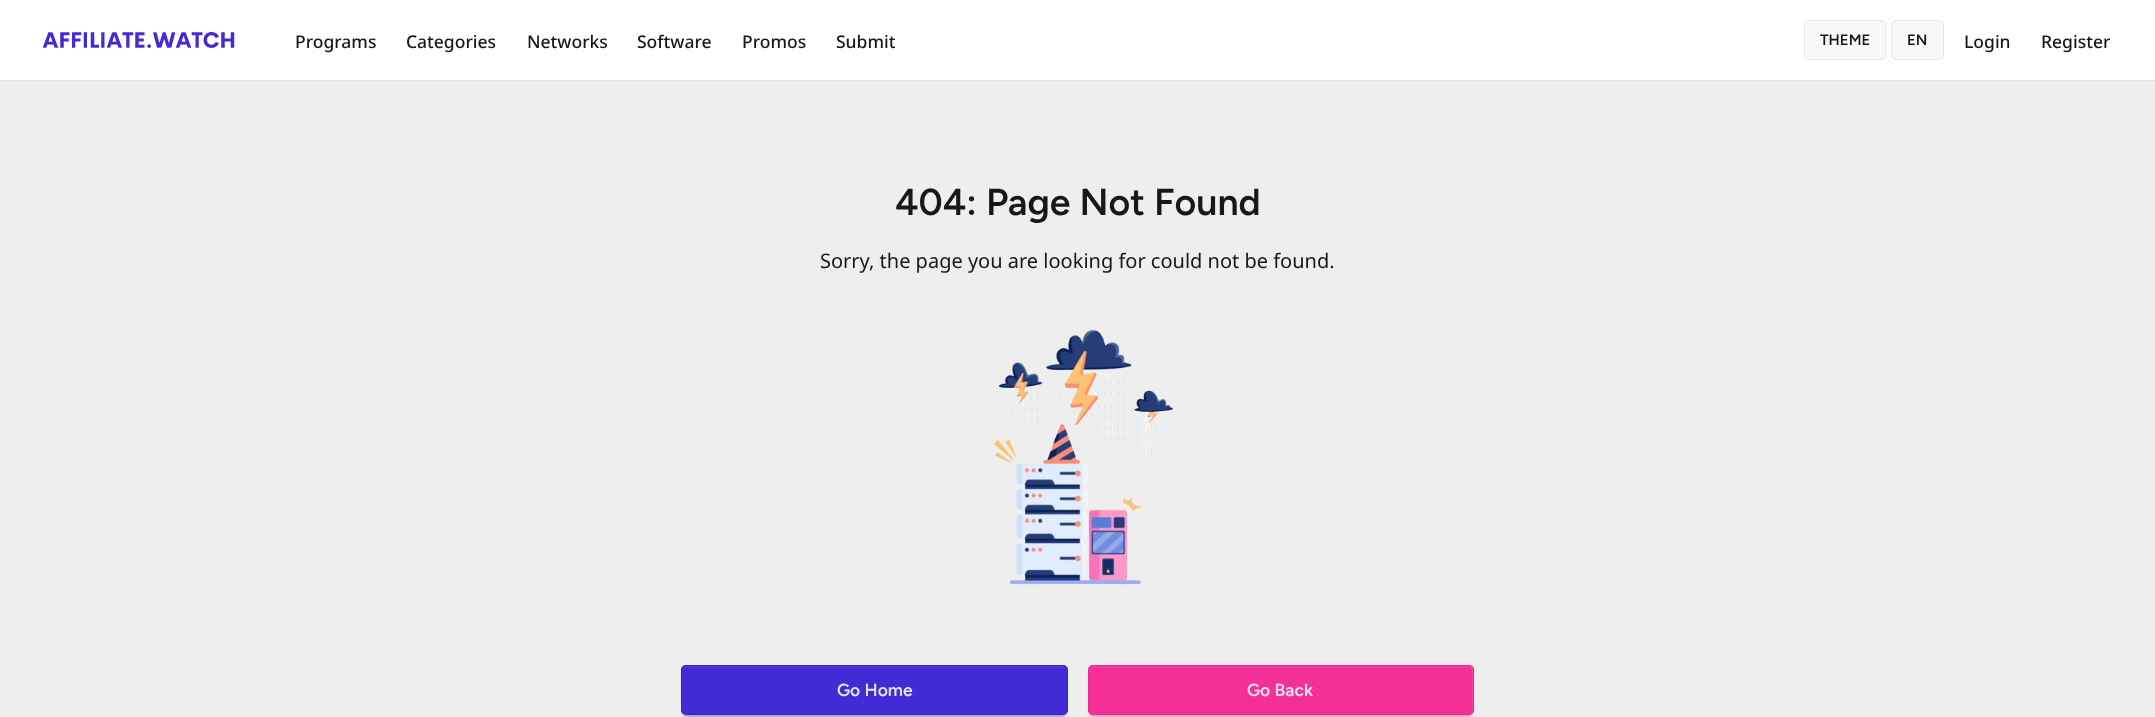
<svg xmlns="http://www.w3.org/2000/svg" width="2155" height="717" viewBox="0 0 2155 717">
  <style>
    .t1 { font: 500 17.5px Noto Sans; fill: #18181b; }
    .t2 { font: 600 15px Figtree; fill: #18181b; }
    .t3 { font: 600 37.5px Figtree; fill: #18181b; }
    .t4 { font: 20px Noto Sans; fill: #18181b; }
    .t5 { font: 600 17.5px Figtree; fill: #e0e7ff; }
    .t6 { font: 600 17.5px Figtree; fill: #f9e4f0; }
  </style>
  <rect width="100%" height="100%" fill="#fff"/>
  <rect x="0" y="80" width="2155" height="1" fill="#e4e4e7"/>
  <image x="42" y="32" width="193" height="16" href="images/1.png"/>
  <text x="295" y="48" class="t1">Programs</text>
  <text x="406" y="48" class="t1">Categories</text>
  <text x="527" y="48" class="t1">Networks</text>
  <text x="637" y="48" class="t1">Software</text>
  <text x="742" y="48" class="t1">Promos</text>
  <text x="836" y="48" class="t1">Submit</text>
  <rect x="1804.5" y="20.5" width="81" height="39" rx="4.5" fill="#f8f8f8" stroke="#e8e8e8"/>
  <text x="1820" y="45" class="t2">THEME</text>
  <rect x="1891.5" y="20.5" width="52" height="39" rx="4.5" fill="#f8f8f8" stroke="#e8e8e8"/>
  <text x="1907" y="45" class="t2">EN</text>
  <text x="1964" y="48" class="t1">Login</text>
  <text x="2041" y="48" class="t1">Register</text>
  <rect x="0" y="81" width="2155" height="636" fill="#eee"/>
  <text x="895" y="215" class="t3">404: Page Not Found</text>
  <text x="820" y="268" class="t4">Sorry, the page you are looking for could not be found.</text>
  <image x="993" y="329" width="181" height="256" href="images/2.png"/>
  <rect x="684" y="673" width="381" height="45" rx="2.5" fill="#422ad54d" filter="blur(2px)"/>
  <rect x="684" y="671" width="381" height="45" rx="2.5" fill="#422ad54d" filter="blur(1px)"/>
  <rect x="681" y="665" width="387" height="50" rx="5" fill="#422ad5"/>
  <path d="M686 668H1062C1064 668 1066 669 1066 671C1066 668 1065 666 1062 666H687C684 666 683 668 683 671C683 669 685 668 686 668ZM1065 713L1062 714Z" fill="#4d37d8" fill-rule="evenodd"/>
  <rect x="681.5" y="665.5" width="386" height="49" rx="4.5" fill="none" stroke="#3d26c7"/>
  <text x="837" y="696" class="t5">Go Home</text>
  <rect x="1090" y="673" width="381" height="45" rx="2.5" fill="#f430984d" filter="blur(2px)"/>
  <rect x="1090" y="671" width="381" height="45" rx="2.5" fill="#f430984d" filter="blur(1px)"/>
  <rect x="1088" y="665" width="386" height="50" rx="5" fill="#f43098"/>
  <path d="M1092 668H1469C1470 668 1472 669 1472 671V711C1472 712 1470 714 1469 714C1471 714 1473 712 1473 710V670C1473 668 1471 666 1469 666H1093C1091 666 1089 668 1089 670V671C1089 669 1091 668 1092 668Z" fill="#f53c9e"/>
  <rect x="1088.5" y="665.5" width="385" height="49" rx="4.5" fill="none" stroke="#e42c8e"/>
  <text x="1247" y="696" class="t6">Go Back</text>
</svg>
